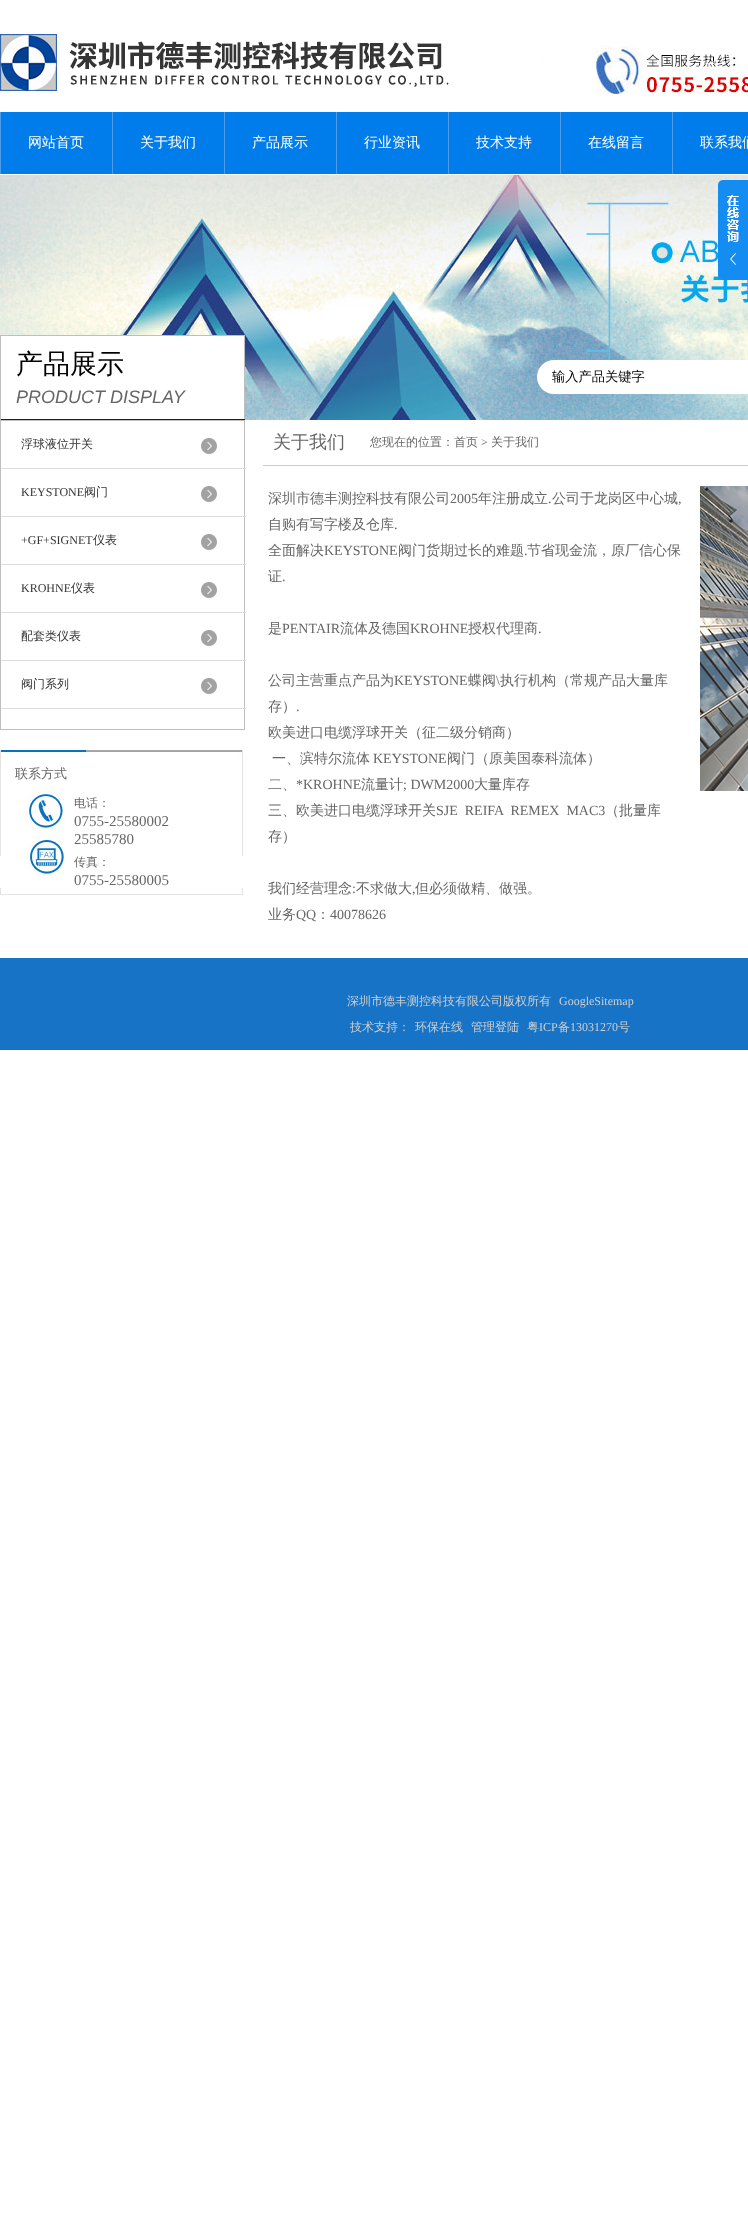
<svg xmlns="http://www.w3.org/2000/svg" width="748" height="2233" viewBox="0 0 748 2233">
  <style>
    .t1 { font: 500 14px WenQuanYi Zen Hei; fill: #fff; }
    .t2 { font: 500 27px WenQuanYi Zen Hei; fill: #000; }
    .t3 { font: italic 18px Liberation Sans; fill: #666; }
    .t4 { font: 500 13.25px WenQuanYi Zen Hei; fill: #000; }
    .t5 { font: 500 12px WenQuanYi Zen Hei; fill: #333; }
    .t6 { font: 12px Liberation Serif; fill: #333; }
    .t7 { font: 500 13px WenQuanYi Zen Hei; fill: #666; }
    .t8 { font: 500 12px WenQuanYi Zen Hei; fill: #666; }
    .t9 { font: 15px Liberation Serif; fill: #666; }
    .t10 { font: 500 18px WenQuanYi Zen Hei; fill: #666; }
    .t11 { font: 12px Liberation Serif; fill: #666; }
    .t12 { font: 500 14px WenQuanYi Zen Hei; fill: #666; }
    .t13 { font: 14px Liberation Serif; fill: #666; }
    .t14 { font: 500 12px WenQuanYi Zen Hei; fill: #cfcfcf; }
    .t15 { font: 12px Liberation Serif; fill: #cfcfcf; }
  </style>
  <rect width="100%" height="100%" fill="#fff"/>
  <image x="0" y="34" width="543" height="57" href="images/1.png"/>
  <image x="596" y="46" width="152" height="48" href="images/2.png"/>
  <rect x="1" y="112" width="747" height="62" fill="#007deb"/>
  <image x="0" y="112" width="1" height="62" href="images/3.png"/>
  <text x="28" y="147" class="t1">网站首页</text>
  <image x="112" y="112" width="1" height="62" href="images/3.png"/>
  <text x="140" y="147" class="t1">关于我们</text>
  <image x="224" y="112" width="1" height="62" href="images/3.png"/>
  <text x="252" y="147" class="t1">产品展示</text>
  <image x="336" y="112" width="1" height="62" href="images/3.png"/>
  <text x="364" y="147" class="t1">行业资讯</text>
  <image x="448" y="112" width="1" height="62" href="images/3.png"/>
  <text x="476" y="147" class="t1">技术支持</text>
  <image x="560" y="112" width="1" height="62" href="images/3.png"/>
  <text x="588" y="147" class="t1">在线留言</text>
  <image x="672" y="112" width="1" height="62" href="images/3.png"/>
  <text x="700" y="147" class="t1">联系我们</text>
  <image x="0" y="175" width="748" height="245" href="images/4.png"/>
  <image x="718" y="180" width="30" height="100" href="images/5.png"/>
  <rect x="1" y="336" width="243" height="83" fill="#fff"/>
  <rect x="0" y="335" width="245" height="1" fill="#bebebe"/>
  <rect x="244" y="335" width="1" height="85" fill="#bebebe"/>
  <rect x="0" y="419" width="245" height="1" fill="#23201d"/>
  <rect x="0" y="335" width="1" height="85" fill="#bebebe"/>
  <text x="16" y="373" class="t2">产品展示</text>
  <text x="16" y="403" class="t3">PRODUCT DISPLAY</text>
  <rect x="537" y="360" width="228" height="34" rx="17" fill="#fff"/>
  <text x="552" y="381" class="t4">输入产品关键字</text>
  <rect x="0.5" y="420.5" width="244" height="309" fill="none" stroke="#bebebe"/>
  <image x="201" y="438" width="16" height="16" href="images/6.png"/>
  <rect x="1" y="468" width="245" height="1" fill="#ddd"/>
  <text x="21" y="448" class="t5">浮球液位开关</text>
  <image x="201" y="486" width="16" height="16" href="images/6.png"/>
  <rect x="1" y="516" width="245" height="1" fill="#ddd"/>
  <text x="21" y="496" class="t6">KEYSTONE</text>
  <text x="84" y="496" class="t5">阀门</text>
  <image x="201" y="534" width="16" height="16" href="images/6.png"/>
  <rect x="1" y="564" width="245" height="1" fill="#ddd"/>
  <text x="21" y="544" class="t6">+GF+SIGNET</text>
  <text x="93" y="544" class="t5">仪表</text>
  <image x="201" y="582" width="16" height="16" href="images/6.png"/>
  <rect x="1" y="612" width="245" height="1" fill="#ddd"/>
  <text x="21" y="592" class="t6">KROHNE</text>
  <text x="71" y="592" class="t5">仪表</text>
  <image x="201" y="630" width="16" height="16" href="images/6.png"/>
  <rect x="1" y="660" width="245" height="1" fill="#ddd"/>
  <text x="21" y="640" class="t5">配套类仪表</text>
  <image x="201" y="678" width="16" height="16" href="images/6.png"/>
  <rect x="1" y="708" width="245" height="1" fill="#ddd"/>
  <text x="21" y="688" class="t5">阀门系列</text>
  <image x="0" y="750" width="243" height="145" href="images/7.png"/>
  <text x="15" y="778" class="t7">联系方式</text>
  <text x="74" y="807" class="t8">电话：</text>
  <text x="74" y="826" class="t9">0755-25580002</text>
  <text x="74" y="844" class="t9">25585780</text>
  <text x="74" y="866" class="t8">传真：</text>
  <text x="74" y="885" class="t9">0755-25580005</text>
  <rect x="263" y="465" width="485" height="1" fill="#ccc"/>
  <text x="273" y="448" class="t10">关于我们</text>
  <text x="370" y="446" class="t8">您现在的位置：首页</text>
  <text x="481" y="446" class="t11">&gt;</text>
  <text x="491" y="446" class="t8">关于我们</text>
  <text x="268" y="503" class="t12">深圳市德丰测控科技有限公司</text>
  <text x="450" y="503" class="t13">2005</text>
  <text x="478" y="503" class="t12">年注册成立</text>
  <text x="548" y="503" class="t13">.</text>
  <text x="552" y="503" class="t12">公司于龙岗区中心城</text>
  <text x="678" y="503" class="t13">,</text>
  <text x="268" y="529" class="t12">自购有写字楼及仓库</text>
  <text x="394" y="529" class="t13">.</text>
  <text x="268" y="555" class="t12">全面解决</text>
  <text x="324" y="555" class="t13">KEYSTONE</text>
  <text x="398" y="555" class="t12">阀门货期过长的难题</text>
  <text x="524" y="555" class="t13">.</text>
  <text x="527" y="555" class="t12">节省现金流，原厂信心保</text>
  <text x="268" y="581" class="t12">证</text>
  <text x="282" y="581" class="t13">.</text>
  <text x="268" y="633" class="t12">是</text>
  <text x="282" y="633" class="t13">PENTAIR</text>
  <text x="340" y="633" class="t12">流体及德国</text>
  <text x="410" y="633" class="t13">KROHNE</text>
  <text x="468" y="633" class="t12">授权代理商</text>
  <text x="538" y="633" class="t13">.</text>
  <text x="268" y="685" class="t12">公司主营重点产品为</text>
  <text x="394" y="685" class="t13">KEYSTONE</text>
  <text x="468" y="685" class="t12">蝶阀</text>
  <text x="496" y="685" class="t13">\</text>
  <text x="500" y="685" class="t12">执行机构（常规产品大量库</text>
  <text x="268" y="711" class="t12">存）</text>
  <text x="296" y="711" class="t13">.</text>
  <text x="268" y="737" class="t12">欧美进口电缆浮球开关（征二级分销商）</text>
  <text x="272" y="763" class="t12">一、滨特尔流体</text>
  <text x="373" y="763" class="t13">KEYSTONE</text>
  <text x="447" y="763" class="t12">阀门（原美国泰科流体）</text>
  <text x="268" y="789" class="t12">二、</text>
  <text x="296" y="789" class="t13">*KROHNE</text>
  <text x="361" y="789" class="t12">流量计</text>
  <text x="403" y="789" class="t13">; DWM2000</text>
  <text x="474" y="789" class="t12">大量库存</text>
  <text x="268" y="815" class="t12">三、欧美进口电缆浮球开关</text>
  <text x="436" y="815" class="t13" xml:space="preserve">SJE  REIFA  REMEX  MAC3</text>
  <text x="605" y="815" class="t12">（批量库</text>
  <text x="268" y="841" class="t12">存）</text>
  <text x="268" y="893" class="t12">我们经营理念</text>
  <text x="352" y="893" class="t13">:</text>
  <text x="356" y="893" class="t12">不求做大</text>
  <text x="412" y="893" class="t13">,</text>
  <text x="415" y="893" class="t12">但必须做精、做强。</text>
  <text x="268" y="919" class="t12">业务</text>
  <text x="296" y="919" class="t13">QQ</text>
  <text x="316" y="919" class="t12">：</text>
  <text x="330" y="919" class="t13">40078626</text>
  <image x="700" y="486" width="48" height="305" href="images/8.png"/>
  <rect x="0" y="958" width="748" height="92" fill="#1773c6"/>
  <text x="347" y="1005" class="t14">深圳市德丰测控科技有限公司版权所有</text>
  <text x="559" y="1005" class="t15">GoogleSitemap</text>
  <text x="350" y="1031" class="t14">技术支持：</text>
  <text x="415" y="1031" class="t14">环保在线</text>
  <text x="471" y="1031" class="t14">管理登陆</text>
  <text x="527" y="1031" class="t14">粤</text>
  <text x="539" y="1031" class="t15">ICP</text>
  <text x="558" y="1031" class="t14">备</text>
  <text x="570" y="1031" class="t15">13031270</text>
  <text x="618" y="1031" class="t14">号</text>
</svg>
